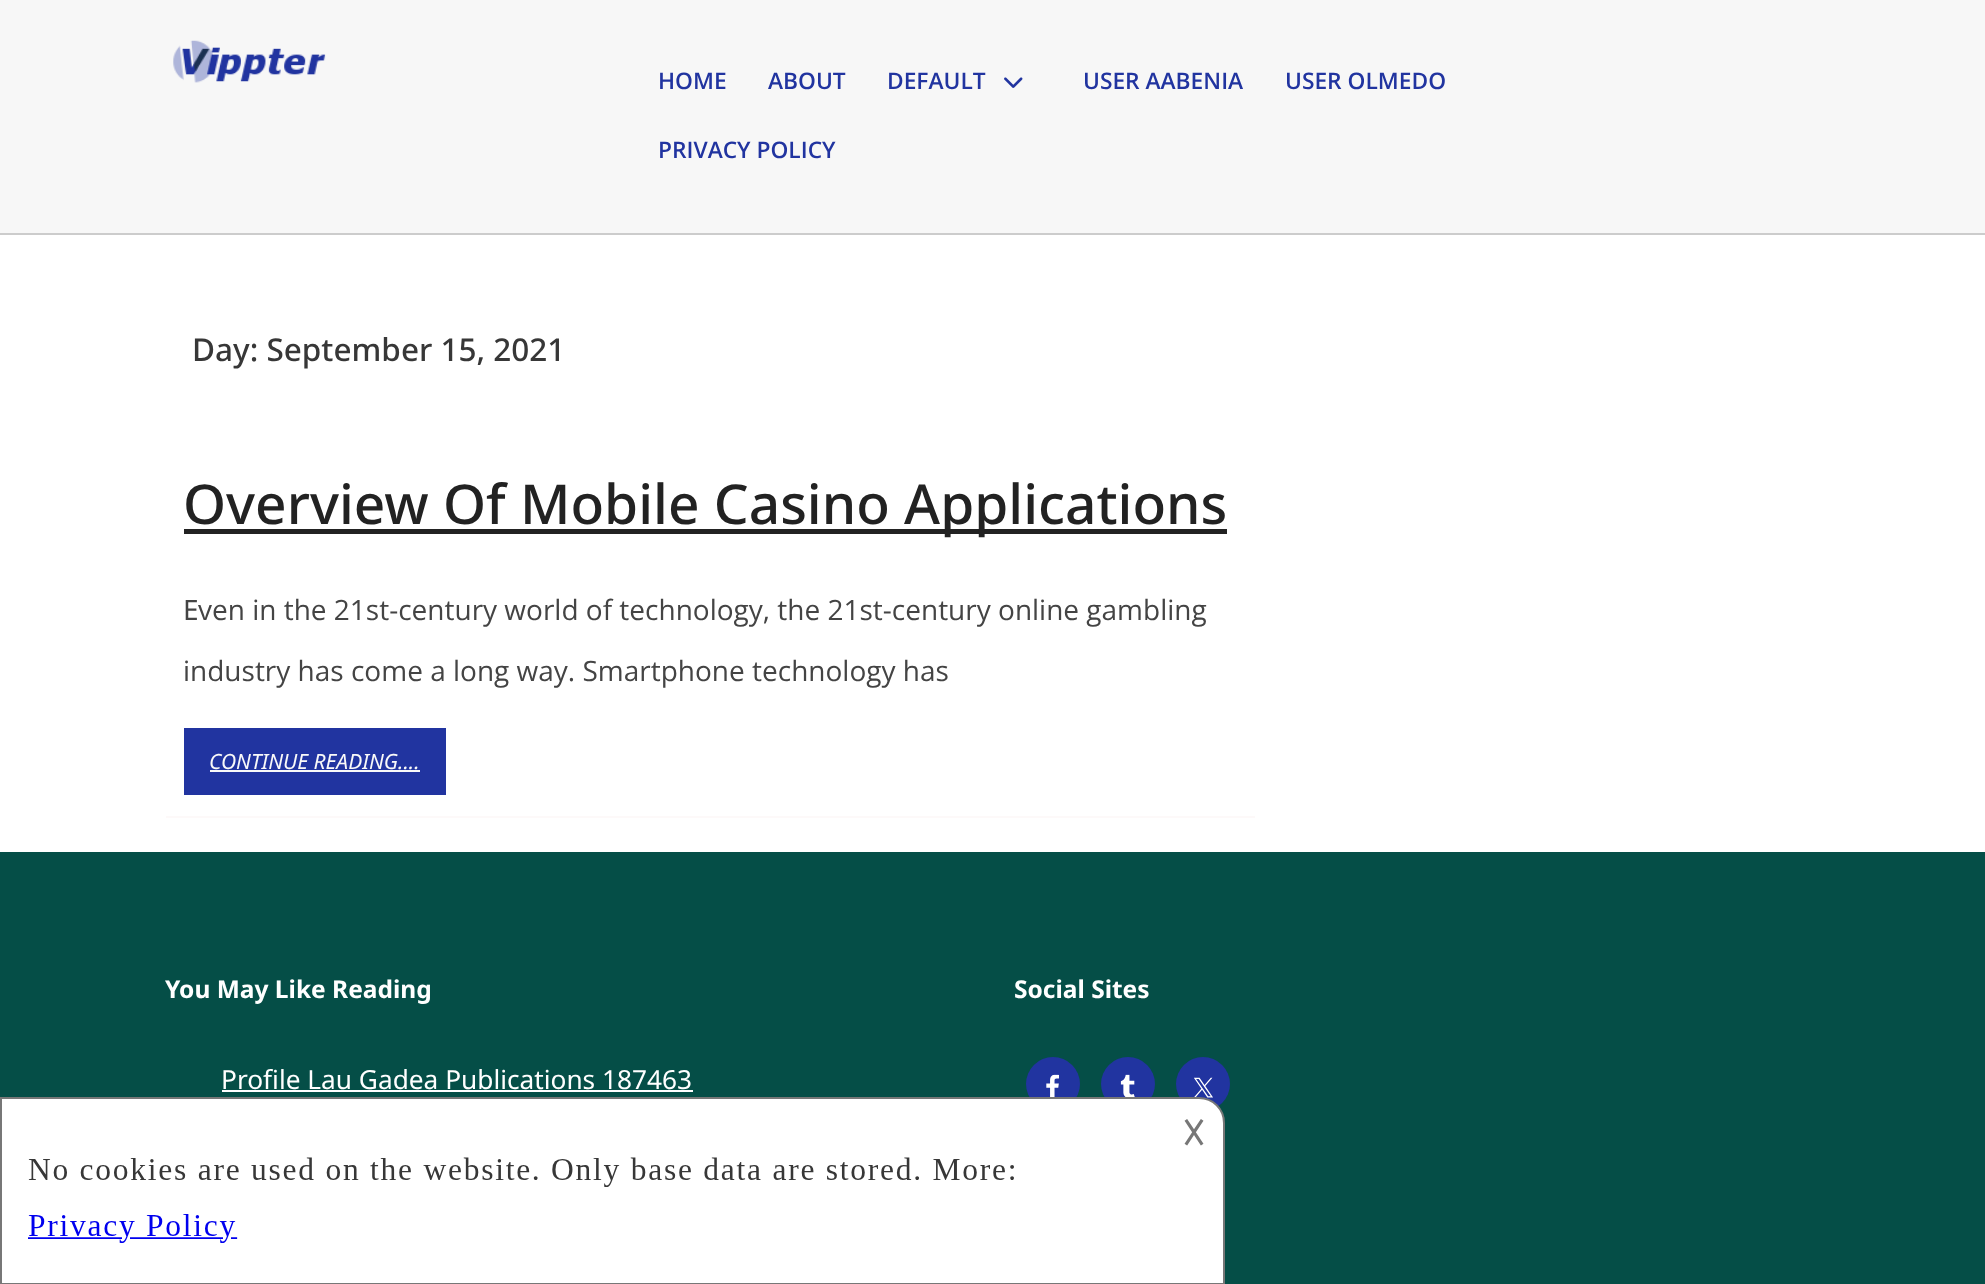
<svg xmlns="http://www.w3.org/2000/svg" width="1985" height="1284" viewBox="0 0 1985 1284">
  <style>
    .t1 { font: 600 22.75px Open Sans; fill: #2134a0; }
    .t2 { font: 500 31.5px Noto Sans; fill: #373737; }
    .t3 { font: 500 55px Noto Sans; fill: #222; }
    .t4 { font: 28px Noto Sans; fill: #444; }
    .t5 { font: 28px Open Sans; fill: #444; }
    .t6 { font: italic 21px Noto Sans; fill: #f9f9f9; }
    .t7 { font: bold 24.5px Noto Sans; fill: #fff; }
    .t8 { font: 26.25px Noto Sans; fill: #fff; }
    .t9 { font: 35px DejaVu Sans; fill: #777; }
  </style>
  <rect width="100%" height="100%" fill="#fff"/>
  <rect x="0" y="0" width="1985" height="233" fill="#f7f7f7"/>
  <rect x="0" y="233" width="1985" height="2" fill="#ccc"/>
  <image x="173" y="40" width="153" height="43" href="images/1.png"/>
  <text x="658" y="89" class="t1">HOME</text>
  <text x="768" y="89" class="t1">ABOUT</text>
  <text x="887" y="89" class="t1">DEFAULT</text>
  <image x="1004" y="77" width="19" height="11" href="images/2.png"/>
  <text x="1083" y="89" class="t1">USER AABENIA</text>
  <text x="1285" y="89" class="t1">USER OLMEDO</text>
  <text x="658" y="158" class="t1">PRIVACY POLICY</text>
  <text x="192" y="361" class="t2">Day: September 15, 2021</text>
  <rect x="166" y="816" width="1089" height="2" fill="#fdf9f9"/>
  <rect x="184" y="529" width="1043" height="5" fill="#222"/>
  <text x="183" y="524" class="t3">Overview Of Mobile Casino Applications</text>
  <text x="183" y="620" class="t4">E</text>
  <text x="198" y="620" class="t5">ven in the 21st-century world of technology, the 21st-century online gambling</text>
  <text x="183" y="681" class="t5">industry has come a long way. Smartphone technology has</text>
  <rect x="184" y="728" width="262" height="67" fill="#2134a0"/>
  <text x="209" y="769" class="t6">CONTINUE READING....</text>
  <rect x="210" y="770" width="210" height="2" fill="#f9f9f9"/>
  <rect x="0" y="852" width="1985" height="432" fill="#054e47"/>
  <text x="165" y="998" class="t7">You May Like Reading</text>
  <text x="221" y="1089" class="t8">Profile Lau Gadea Publications 187463</text>
  <rect x="222" y="1090" width="471" height="2" fill="#fff"/>
  <text x="1014" y="998" class="t7">Social Sites</text>
  <circle cx="1053" cy="1084" r="27" fill="#2134a0"/>
  <image x="1046" y="1074" width="13" height="23" href="images/3.png"/>
  <circle cx="1128" cy="1084" r="27" fill="#2134a0"/>
  <image x="1120" y="1074" width="15" height="23" href="images/4.png"/>
  <circle cx="1203" cy="1084" r="27" fill="#2134a0"/>
  <image x="1194" y="1077" width="19" height="21" href="images/5.png"/>
  <path d="M1 1098H1199C1213 1098 1224 1109 1224 1123V1284H1Z" fill="#fff" stroke="#777" stroke-width="2"/>
  <text x="1182" y="1145" class="t9">𐌢</text>
  <image x="28" y="1157" width="986" height="86" href="images/6.png"/>
</svg>
